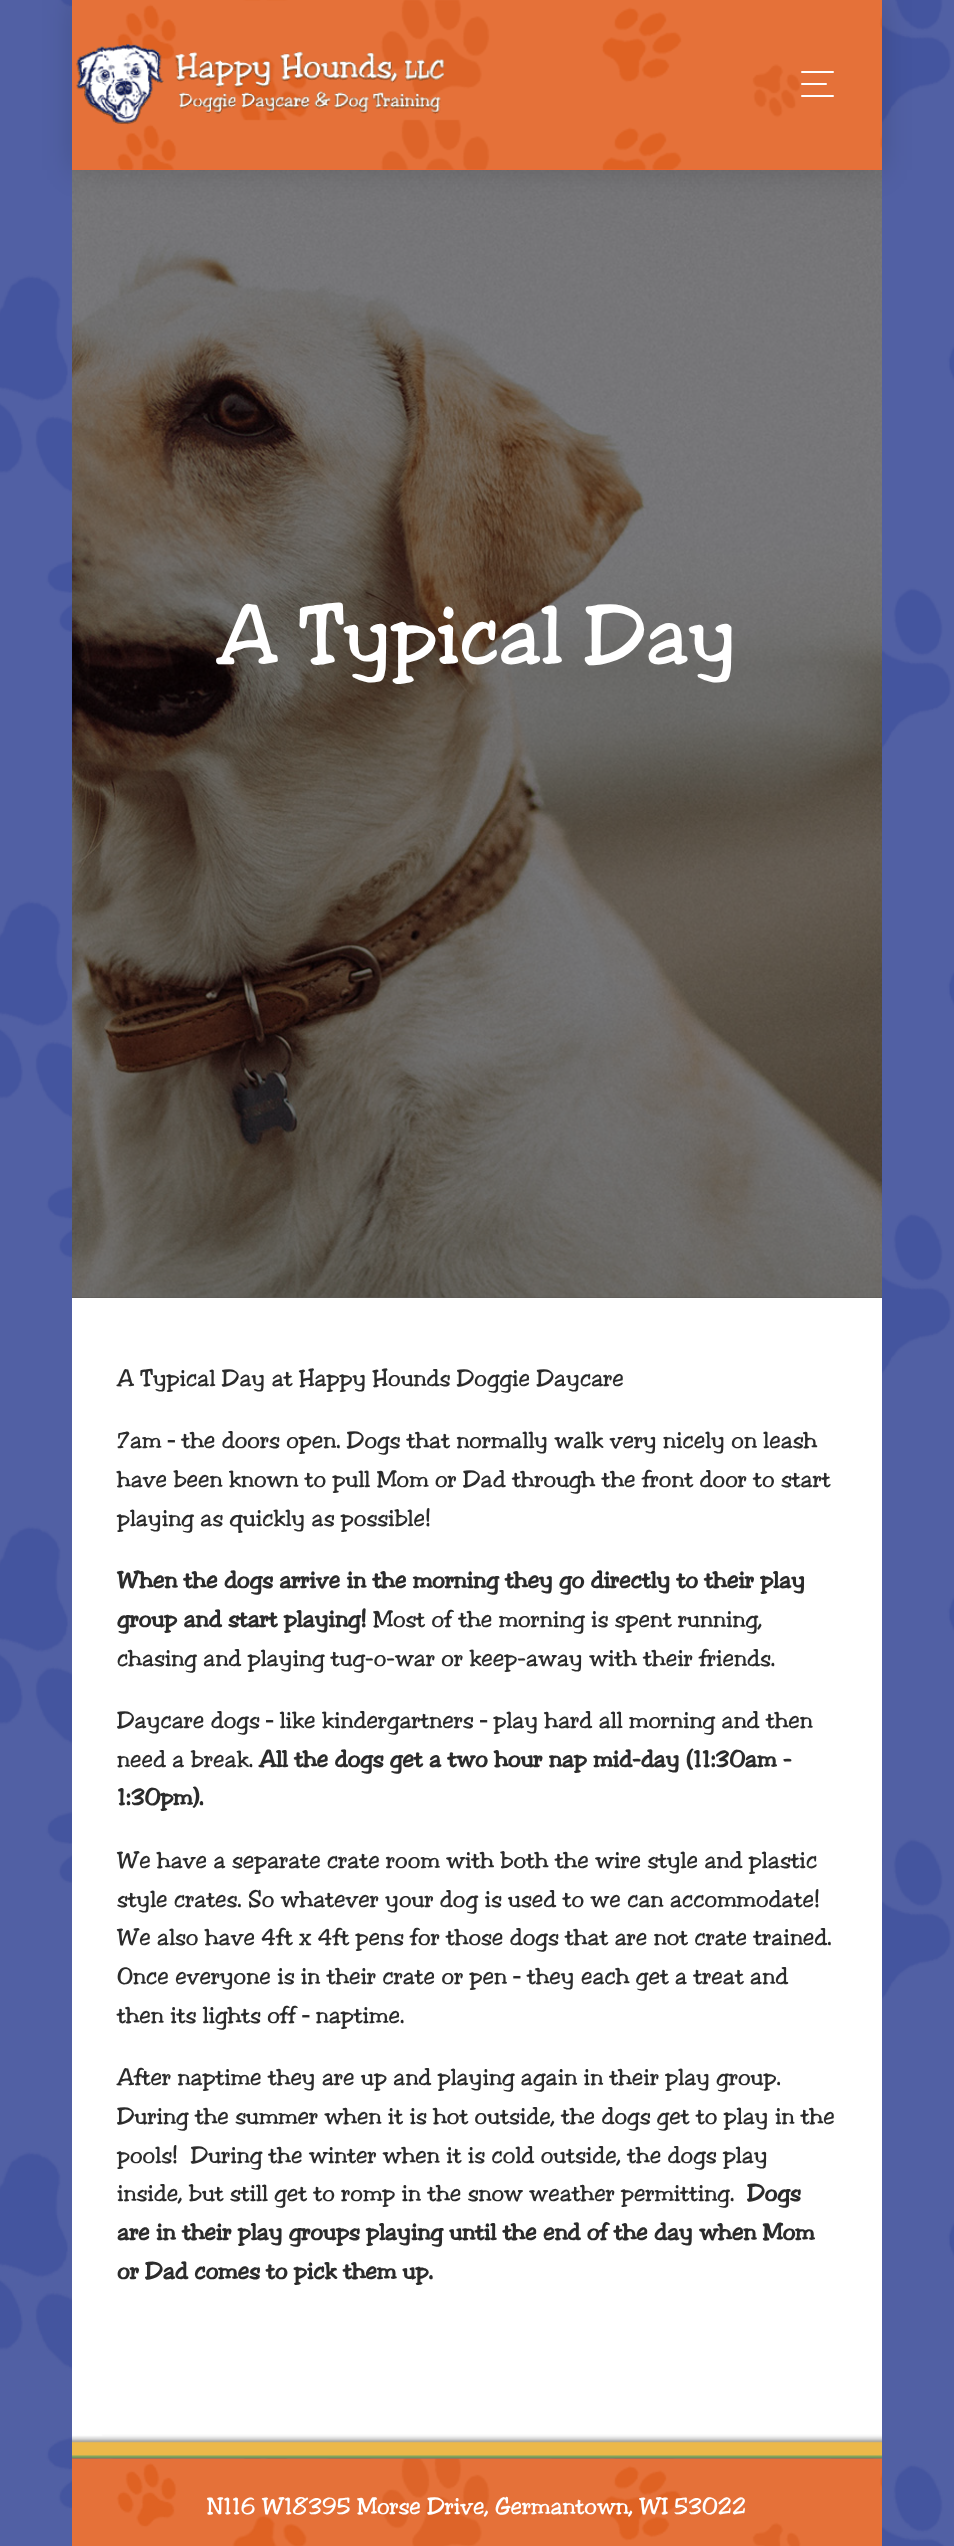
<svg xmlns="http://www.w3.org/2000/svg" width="954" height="2546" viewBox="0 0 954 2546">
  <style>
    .t1 { font: 84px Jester; fill: #fff; }
    .t2 { font: 24px Jester; fill: #2c2c2c; }
    .t3 { font: bold 24px Jester; fill: #2c2c2c; }
    .t4 { font: 24px Jester; fill: #fff; }
  </style>
  <rect width="100%" height="100%" fill="#fff"/>
  <image x="0" y="0" width="954" height="2546" href="images/1.png"/>
  <rect x="72" y="1297" width="810" height="1" fill="#b2afab"/>
  <image x="72" y="170" width="810" height="1128" href="images/4.png"/>
  <rect x="72" y="170" width="810" height="1128" fill="#00000080"/>
  <rect x="72" y="0" width="810" height="170" fill="#00000026" filter="blur(15px)"/>
  <rect x="72" y="169" width="810" height="1" fill="#f96332"/>
  <image x="72" y="0" width="810" height="170" href="images/2.png"/>
  <image x="76" y="44" width="368" height="81" href="images/3.png"/>
  <rect x="801" y="71" width="33" height="2" rx="1" fill="#fff"/>
  <rect x="801" y="83" width="26" height="2" rx="1" fill="#fff"/>
  <rect x="801" y="95" width="33" height="2" rx="1" fill="#fff"/>
  <text x="218" y="663" class="t1">A Typical Day</text>
  <rect x="72" y="1298" width="810" height="1134" fill="#fff"/>
  <text x="117" y="1386" class="t2">A Typical Day at Happy Hounds Doggie Daycare</text>
  <text x="117" y="1448" class="t2">7am – the doors open. Dogs that normally walk very nicely on leash</text>
  <text x="117" y="1487" class="t2">have been known to pull Mom or Dad through the front door to start</text>
  <text x="117" y="1526" class="t2">playing as quickly as possible!</text>
  <text x="117" y="1588" class="t3">When the dogs arrive in the morning they go directly to their play</text>
  <text x="117" y="1627" class="t3">group and start playing!</text>
  <text x="373" y="1627" class="t2">Most of the morning is spent running,</text>
  <text x="117" y="1666" class="t2">chasing and playing tug-o-war or keep-away with their friends.</text>
  <text x="117" y="1728" class="t2">Daycare dogs – like kindergartners – play hard all morning and then</text>
  <text x="117" y="1767" class="t2">need a break.</text>
  <text x="259" y="1767" class="t3">All the dogs get a two hour nap mid-day (11:30am -</text>
  <text x="117" y="1805" class="t3">1:30pm).</text>
  <text x="117" y="1868" class="t2">We have a separate crate room with both the wire style and plastic</text>
  <text x="117" y="1907" class="t2">style crates. So whatever your dog is used to we can accommodate!</text>
  <text x="117" y="1945" class="t2">We also have 4ft x 4ft pens for those dogs that are not crate trained.</text>
  <text x="117" y="1984" class="t2">Once everyone is in their crate or pen – they each get a treat and</text>
  <text x="117" y="2023" class="t2">then its lights off – naptime.</text>
  <text x="117" y="2085" class="t2">After naptime they are up and playing again in their play group.</text>
  <text x="117" y="2124" class="t2">During the summer when it is hot outside, the dogs get to play in the</text>
  <text x="117" y="2163" class="t2" xml:space="preserve">pools!  During the winter when it is cold outside, the dogs play</text>
  <text x="117" y="2201" class="t2">inside, but still get to romp in the snow weather permitting.</text>
  <text x="747" y="2201" class="t3">Dogs</text>
  <text x="117" y="2240" class="t3">are in their play groups playing until the end of the day when Mom</text>
  <text x="117" y="2279" class="t3">or Dad comes to pick them up.</text>
  <image x="72" y="2432" width="810" height="27" href="images/5.png"/>
  <image x="72" y="2458" width="810" height="88" href="images/6.png"/>
  <text x="207" y="2514" class="t4">N116 W18395 Morse Drive, Germantown, WI 53022</text>
</svg>
